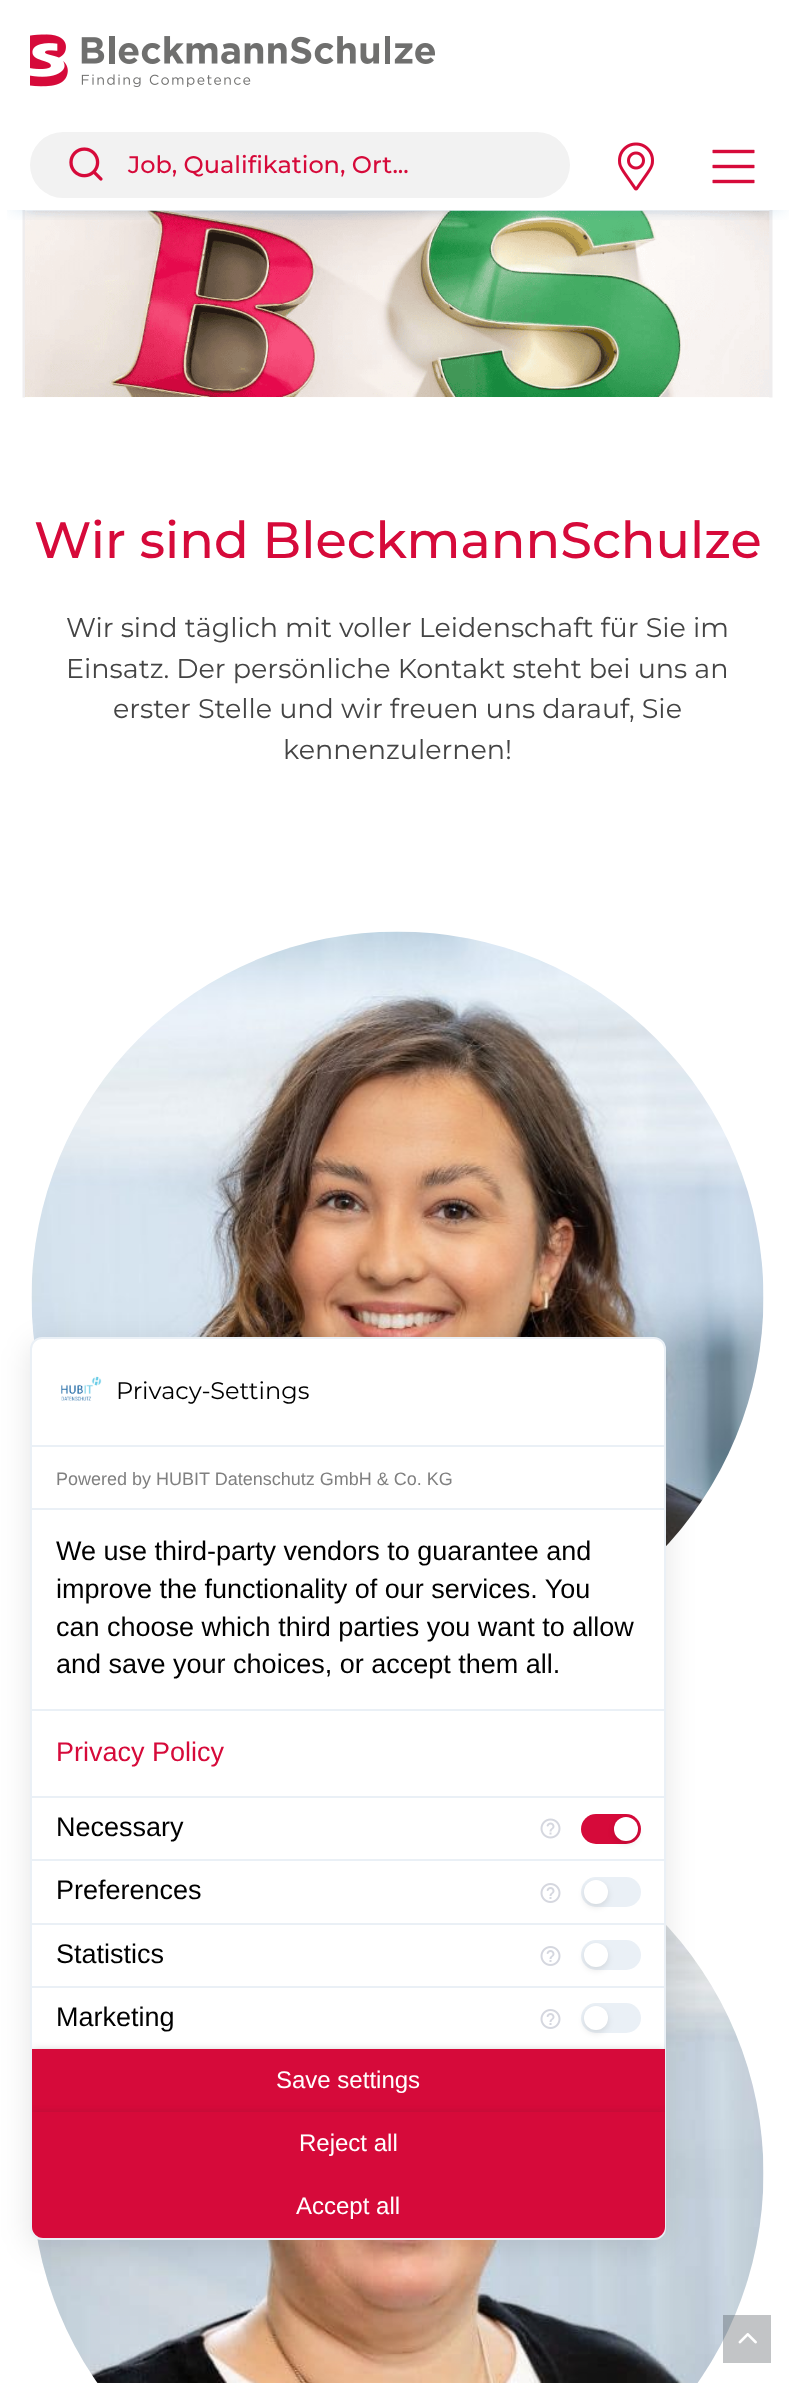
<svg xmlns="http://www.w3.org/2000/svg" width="795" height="2383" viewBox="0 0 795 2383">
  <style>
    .t1 { font: 100 24px Montserrat; fill: #d60a3a; }
    .t2 { font: 100 51px Montserrat; fill: #d60a3a; }
    .t3 { font: 100 27px 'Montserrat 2'; fill: #444; }
    .t4 { font: 100 24px 'Montserrat 2'; fill: #000; }
    .t5 { font: 18px Liberation Sans; fill: #808080; }
    .t6 { font: 27px Liberation Sans; fill: #000; }
    .t7 { font: 27px Liberation Sans; fill: #d60a3a; }
    .t8 { font: 24px Liberation Sans; fill: #fff; }
  </style>
  <defs>
    <clipPath id="clip1"><rect x="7" y="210" width="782" height="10"/></clipPath>
    <clipPath id="clip2"><rect x="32" y="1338" width="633" height="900" rx="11"/></clipPath>
  </defs>
  <rect width="100%" height="100%" fill="#fff"/>
  <image x="22" y="210" width="751" height="188" href="images/5.png"/>
  <g clip-path="url(#clip1)">
    <rect x="14" y="21" width="768" height="183" fill="#0b69b34d" filter="blur(10.5px)"/>
  </g>
  <image x="30" y="34" width="405" height="53" href="images/1.png"/>
  <rect x="30" y="132" width="540" height="66" rx="33" fill="#f2f2f2"/>
  <image x="69" y="147" width="34" height="34" href="images/2.png"/>
  <text x="128" y="173" class="t1">Job, Qualifikation, Ort...</text>
  <image x="618" y="142" width="36" height="49" href="images/3.png"/>
  <image x="712" y="149" width="43" height="35" href="images/4.png"/>
  <text x="34" y="558" class="t2">Wir sind BleckmannSchulze</text>
  <text x="66" y="637" class="t3">Wir sind täglich mit voller Leidenschaft für Sie im</text>
  <text x="66" y="678" class="t3">Einsatz. Der persönliche Kontakt steht bei uns an</text>
  <text x="113" y="718" class="t3">erster Stelle und wir freuen uns darauf, Sie</text>
  <text x="283" y="759" class="t3">kennenzulernen!</text>
  <image x="31" y="931" width="733" height="615" href="images/6.png"/>
  <image x="37" y="1925" width="727" height="458" href="images/7.png"/>
  <rect x="30" y="1344" width="636" height="903" rx="12" fill="#0000001a" filter="blur(15px)"/>
  <rect x="31" y="1338" width="634" height="901" rx="11" fill="#fff" stroke="#eaf0f6" stroke-width="2"/>
  <image x="61" y="1376" width="41" height="25" href="images/8.png"/>
  <text x="116" y="1399" class="t4">Privacy-Settings</text>
  <rect x="32" y="1445" width="633" height="2" fill="#eaf0f6"/>
  <text x="56" y="1485" class="t5">Powered by HUBIT Datenschutz GmbH &amp; Co. KG</text>
  <rect x="32" y="1508" width="633" height="2" fill="#eaf0f6"/>
  <text x="56" y="1560" class="t6">We use third-party vendors to guarantee and</text>
  <text x="56" y="1598" class="t6">improve the functionality of our services. You</text>
  <text x="56" y="1636" class="t6">can choose which third parties you want to allow</text>
  <text x="56" y="1673" class="t6">and save your choices, or accept them all.</text>
  <rect x="32" y="1709" width="633" height="2" fill="#eaf0f6"/>
  <text x="56" y="1761" class="t7">Privacy Policy</text>
  <rect x="32" y="1796" width="633" height="2" fill="#eaf0f6"/>
  <text x="56" y="1836" class="t6">Necessary</text>
  <image x="540" y="1818" width="21" height="21" href="images/9.png"/>
  <rect x="581" y="1814" width="60" height="30" rx="15" fill="#d60a3a"/>
  <rect x="614" y="1820" width="24" height="24" rx="12" fill="#0000001a" filter="blur(3px)"/>
  <circle cx="626" cy="1829" r="12" fill="#fff"/>
  <rect x="32" y="1859" width="633" height="2" fill="#eaf0f6"/>
  <text x="56" y="1899" class="t6">Preferences</text>
  <image x="540" y="1883" width="21" height="20" href="images/10.png"/>
  <rect x="581" y="1877" width="60" height="30" rx="15" fill="#eaf0f6"/>
  <rect x="584" y="1883" width="24" height="24" rx="12" fill="#0000001a" filter="blur(3px)"/>
  <circle cx="596" cy="1892" r="12" fill="#fff"/>
  <rect x="32" y="1923" width="633" height="2" fill="#eaf0f6"/>
  <text x="56" y="1963" class="t6">Statistics</text>
  <image x="540" y="1946" width="21" height="20" href="images/10.png"/>
  <rect x="581" y="1940" width="60" height="30" rx="15" fill="#eaf0f6"/>
  <rect x="584" y="1946" width="24" height="24" rx="12" fill="#0000001a" filter="blur(3px)"/>
  <circle cx="596" cy="1955" r="12" fill="#fff"/>
  <rect x="32" y="1986" width="633" height="2" fill="#eaf0f6"/>
  <text x="56" y="2026" class="t6">Marketing</text>
  <image x="540" y="2009" width="21" height="20" href="images/10.png"/>
  <rect x="581" y="2003" width="60" height="30" rx="15" fill="#eaf0f6"/>
  <rect x="584" y="2009" width="24" height="24" rx="12" fill="#0000001a" filter="blur(3px)"/>
  <circle cx="596" cy="2018" r="12" fill="#fff"/>
  <g clip-path="url(#clip2)">
    <rect x="32" y="2051" width="633" height="63" fill="#20212447" filter="blur(4.5px)"/>
  </g>
  <rect x="32" y="2049" width="633" height="63" fill="#d60a3a"/>
  <text x="276" y="2088" class="t8">Save settings</text>
  <g clip-path="url(#clip2)">
    <rect x="32" y="2114" width="633" height="63" fill="#20212447" filter="blur(4.5px)"/>
  </g>
  <rect x="32" y="2112" width="633" height="63" fill="#d60a3a"/>
  <text x="299" y="2151" class="t8">Reject all</text>
  <path d="M32 2175H665V2227C665 2233 660 2238 654 2238H43C37 2238 32 2233 32 2227Z" fill="#d60a3a"/>
  <text x="296" y="2214" class="t8">Accept all</text>
  <rect x="723" y="2315" width="48" height="48" fill="#343b434d"/>
  <image x="738" y="2333" width="19" height="11" href="images/11.png"/>
</svg>
